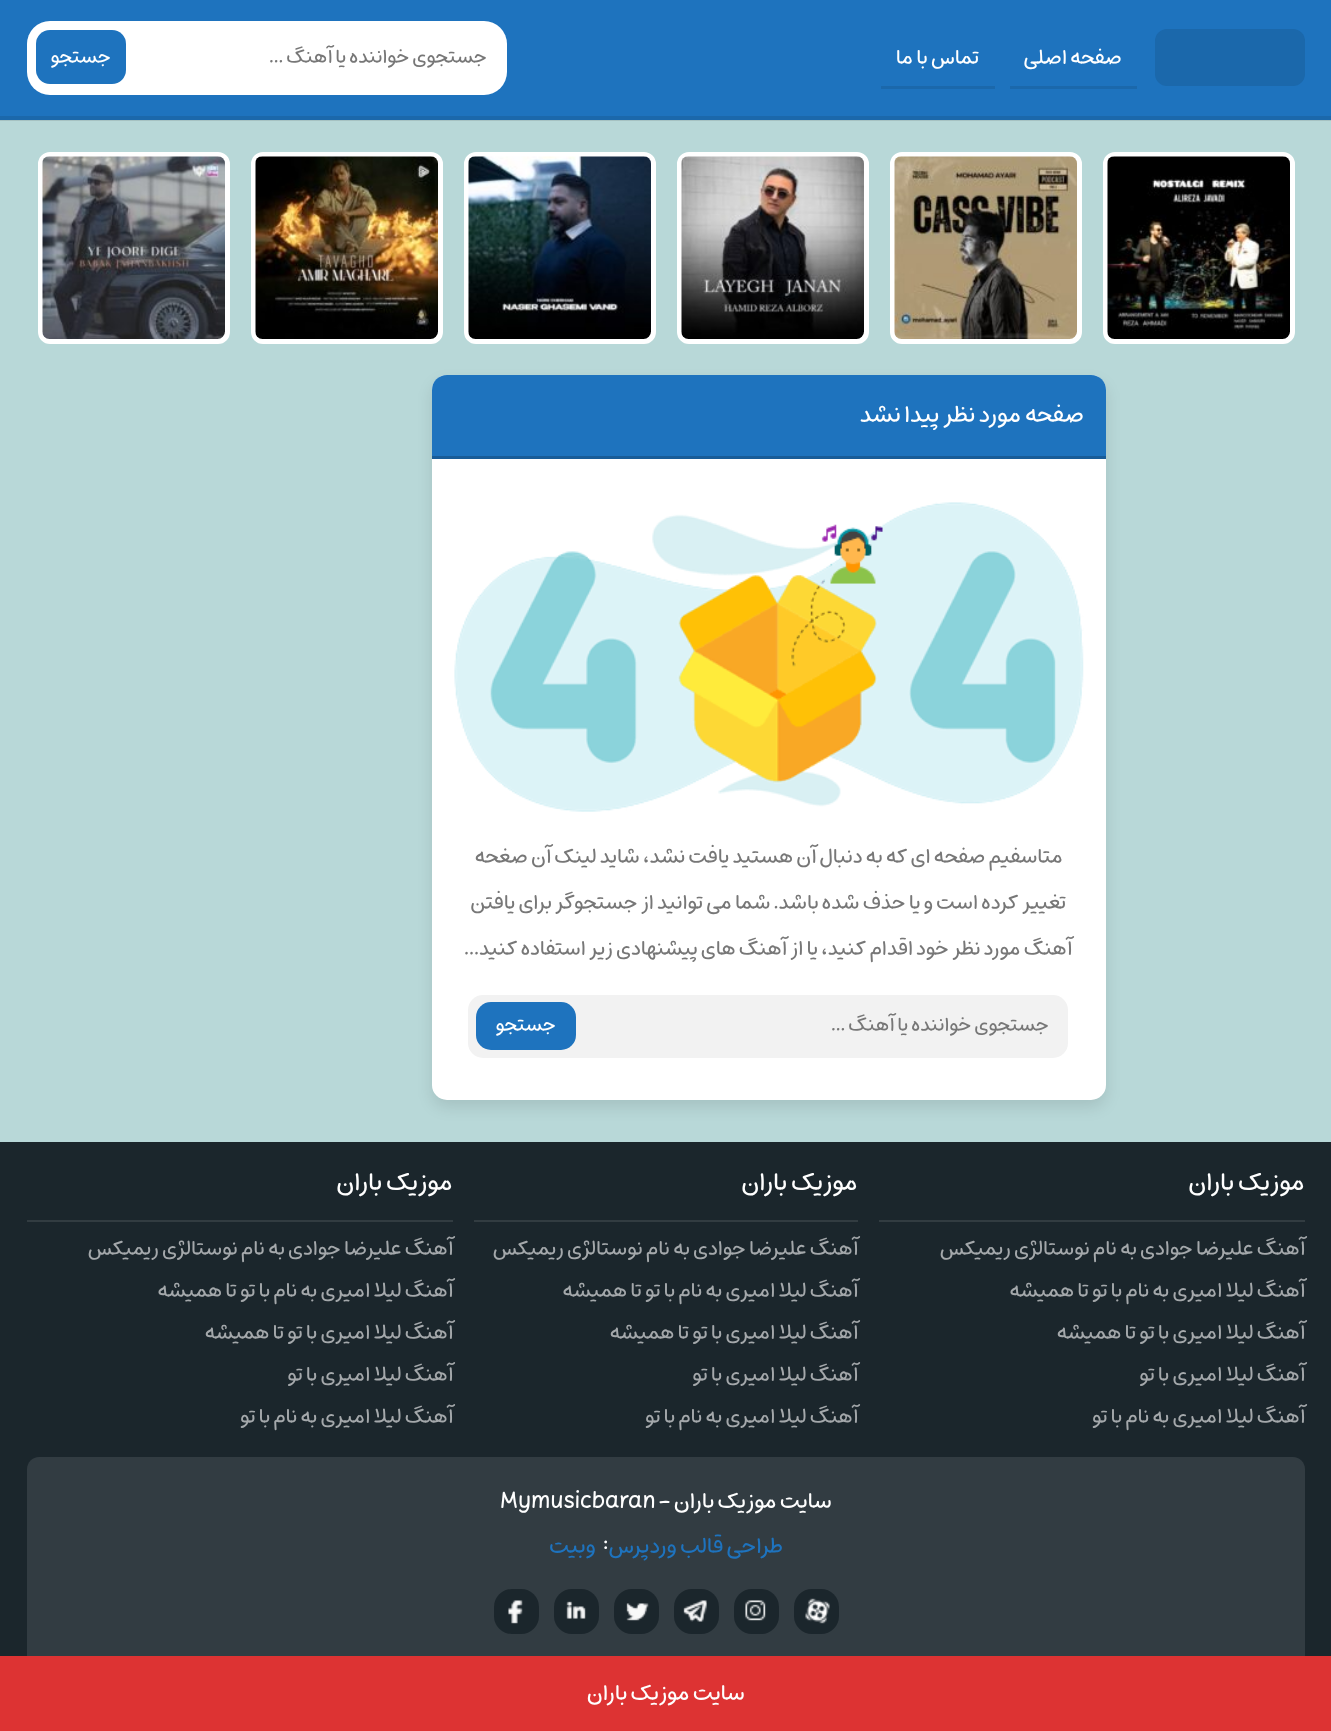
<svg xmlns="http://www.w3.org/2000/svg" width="1331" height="1731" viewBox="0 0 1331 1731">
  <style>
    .t1 { font: 500 21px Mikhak; direction: rtl; fill: #fff; }
    .t2 { font: 500 20px Mikhak; direction: rtl; fill: #777; }
    .t3 { font: 500 20px Mikhak; direction: rtl; fill: #fff; }
    .t4 { font: 500 24px Mikhak; direction: rtl; fill: #fff; }
    .t5 { font: 500 21px Mikhak; direction: rtl; fill: #777; }
    .t6 { font: 500 25.5px Mikhak; direction: rtl; fill: #fff; }
    .t7 { font: 500 21px Mikhak; direction: rtl; fill: #a4a8ab; }
    .t8 { font: 500 22.5px Mikhak; direction: rtl; fill: #fff; }
    .t9 { font: 500 22.5px Mikhak; fill: #fff; }
    .t10 { font: 500 22.5px Mikhak; direction: rtl; fill: #1e73be; }
  </style>
  <rect width="100%" height="100%" fill="#b8d8d8"/>
  <rect x="0" y="120" width="1331" height="1" fill="#a6c2c2"/>
  <rect x="0" y="0" width="1331" height="116" fill="#1e73be"/>
  <rect x="0" y="116" width="1331" height="4" fill="#1b68ab"/>
  <rect x="1155" y="29" width="150" height="57" rx="12" fill="#1b68ab"/>
  <text x="1122" y="63" class="t1">صفحه اصلی</text>
  <rect x="1010" y="86" width="127" height="3" fill="#1b68ab"/>
  <text x="979" y="63" class="t1">تماس با ما</text>
  <rect x="881" y="86" width="114" height="3" fill="#1b68ab"/>
  <rect x="27" y="21" width="480" height="74" rx="23" fill="#fff"/>
  <text x="487" y="62" class="t2">جستجوی خواننده یا آهنگ ...</text>
  <rect x="36" y="30" width="90" height="54" rx="14" fill="#1e73be"/>
  <text x="111" y="62" class="t3">جستجو</text>
  <rect x="1105.5" y="154.5" width="187" height="187" rx="9.5" fill="#fff" stroke="#fff" stroke-width="5"/>
  <image x="1107" y="156" width="183" height="183" href="images/1.png"/>
  <rect x="892.5" y="154.5" width="187" height="187" rx="9.5" fill="#fff" stroke="#fff" stroke-width="5"/>
  <image x="894" y="156" width="183" height="183" href="images/2.png"/>
  <rect x="679.5" y="154.5" width="187" height="187" rx="9.5" fill="#fff" stroke="#fff" stroke-width="5"/>
  <image x="681" y="156" width="183" height="183" href="images/3.png"/>
  <rect x="466.5" y="154.5" width="187" height="187" rx="9.5" fill="#fff" stroke="#fff" stroke-width="5"/>
  <image x="468" y="156" width="183" height="183" href="images/4.png"/>
  <rect x="253.5" y="154.5" width="187" height="187" rx="9.5" fill="#fff" stroke="#fff" stroke-width="5"/>
  <image x="255" y="156" width="183" height="183" href="images/5.png"/>
  <rect x="40.5" y="154.5" width="187" height="187" rx="9.5" fill="#fff" stroke="#fff" stroke-width="5"/>
  <image x="42" y="156" width="183" height="183" href="images/6.png"/>
  <rect x="432" y="383" width="674" height="724" rx="15" fill="#0000001a" filter="blur(7.5px)"/>
  <rect x="432" y="375" width="674" height="725" rx="15" fill="#fff"/>
  <path d="M447 375H1091C1099.5 375 1106 381.5 1106 390V459H432V390C432 381.5 438.5 375 447 375Z" fill="#1e73be"/>
  <rect x="432" y="456" width="674" height="3" fill="#185c98"/>
  <text x="1084" y="421" class="t4">صفحه مورد نظر پیدا نشد</text>
  <image x="454" y="502" width="630" height="310" href="images/7.png"/>
  <text x="1063" y="862" class="t5">متاسفیم صفحه ای که به دنبال آن هستید یافت نشد، شاید لینک آن صغحه</text>
  <text x="1066" y="908" class="t5">تغییر کرده است و یا حذف شده باشد. شما می توانید از جستجوگر</text>
  <text x="552" y="908" class="t5">برای یافتن</text>
  <text x="1072" y="954" class="t5">آهنگ مورد نظر خود اقدام کنید، یا از آهنگ های پیشنهادی زیر استفاده کنید...</text>
  <rect x="468" y="995" width="600" height="63" rx="15" fill="#f2f2f2"/>
  <text x="1049" y="1030" class="t2">جستجوی خواننده یا آهنگ ...</text>
  <rect x="476" y="1002" width="100" height="48" rx="15" fill="#1e73be"/>
  <text x="556" y="1030" class="t3">جستجو</text>
  <rect x="0" y="1142" width="1331" height="514" fill="#1b262c"/>
  <rect x="879" y="1220" width="426" height="2" fill="#323c41"/>
  <text x="1305" y="1189" class="t6">موزیک باران</text>
  <text x="1305" y="1254" class="t7">آهنگ علیرضا جوادی به نام نوستالژی ریمیکس</text>
  <text x="1305" y="1296" class="t7">آهنگ لیلا امیری به نام با تو تا همیشه</text>
  <text x="1305" y="1338" class="t7">آهنگ لیلا امیری با تو تا همیشه</text>
  <text x="1305" y="1380" class="t7">آهنگ لیلا امیری با تو</text>
  <text x="1305" y="1422" class="t7">آهنگ لیلا امیری به نام با تو</text>
  <rect x="474" y="1220" width="384" height="2" fill="#323c41"/>
  <text x="858" y="1189" class="t6">موزیک باران</text>
  <text x="858" y="1254" class="t7">آهنگ علیرضا جوادی به نام نوستالژی ریمیکس</text>
  <text x="858" y="1296" class="t7">آهنگ لیلا امیری به نام با تو تا همیشه</text>
  <text x="858" y="1338" class="t7">آهنگ لیلا امیری با تو تا همیشه</text>
  <text x="858" y="1380" class="t7">آهنگ لیلا امیری با تو</text>
  <text x="858" y="1422" class="t7">آهنگ لیلا امیری به نام با تو</text>
  <rect x="27" y="1220" width="426" height="2" fill="#323c41"/>
  <text x="453" y="1189" class="t6">موزیک باران</text>
  <text x="453" y="1254" class="t7">آهنگ علیرضا جوادی به نام نوستالژی ریمیکس</text>
  <text x="453" y="1296" class="t7">آهنگ لیلا امیری به نام با تو تا همیشه</text>
  <text x="453" y="1338" class="t7">آهنگ لیلا امیری با تو تا همیشه</text>
  <text x="453" y="1380" class="t7">آهنگ لیلا امیری با تو</text>
  <text x="453" y="1422" class="t7">آهنگ لیلا امیری به نام با تو</text>
  <path d="M39 1457H1293C1299.5 1457 1305 1462.5 1305 1469V1664H27V1469C27 1462.5 32.5 1457 39 1457Z" fill="#323c42"/>
  <text x="832" y="1507" class="t8">سایت موزیک باران -</text>
  <text x="500" y="1507" class="t9">Mymusicbaran</text>
  <text x="783" y="1552" class="t10">طراحی قالب وردپرس</text>
  <text x="603" y="1552" class="t9">:</text>
  <text x="596" y="1552" class="t10">وبیت</text>
  <rect x="794" y="1589" width="45" height="45" rx="18" fill="#1b262c"/>
  <image x="805" y="1598" width="25" height="26" href="images/8.png"/>
  <rect x="734" y="1589" width="45" height="45" rx="18" fill="#1b262c"/>
  <image x="745" y="1600" width="21" height="21" href="images/9.png"/>
  <rect x="674" y="1589" width="45" height="45" rx="18" fill="#1b262c"/>
  <image x="683" y="1600" width="24" height="22" href="images/10.png"/>
  <rect x="614" y="1589" width="45" height="45" rx="18" fill="#1b262c"/>
  <image x="626" y="1603" width="23" height="18" href="images/11.png"/>
  <rect x="554" y="1589" width="45" height="45" rx="18" fill="#1b262c"/>
  <image x="566" y="1601" width="20" height="18" href="images/12.png"/>
  <rect x="494" y="1589" width="45" height="45" rx="18" fill="#1b262c"/>
  <image x="508" y="1600" width="15" height="24" href="images/13.png"/>
  <rect x="0" y="1656" width="1331" height="75" fill="#d33"/>
  <text x="745" y="1699" class="t8">سایت موزیک باران</text>
</svg>
